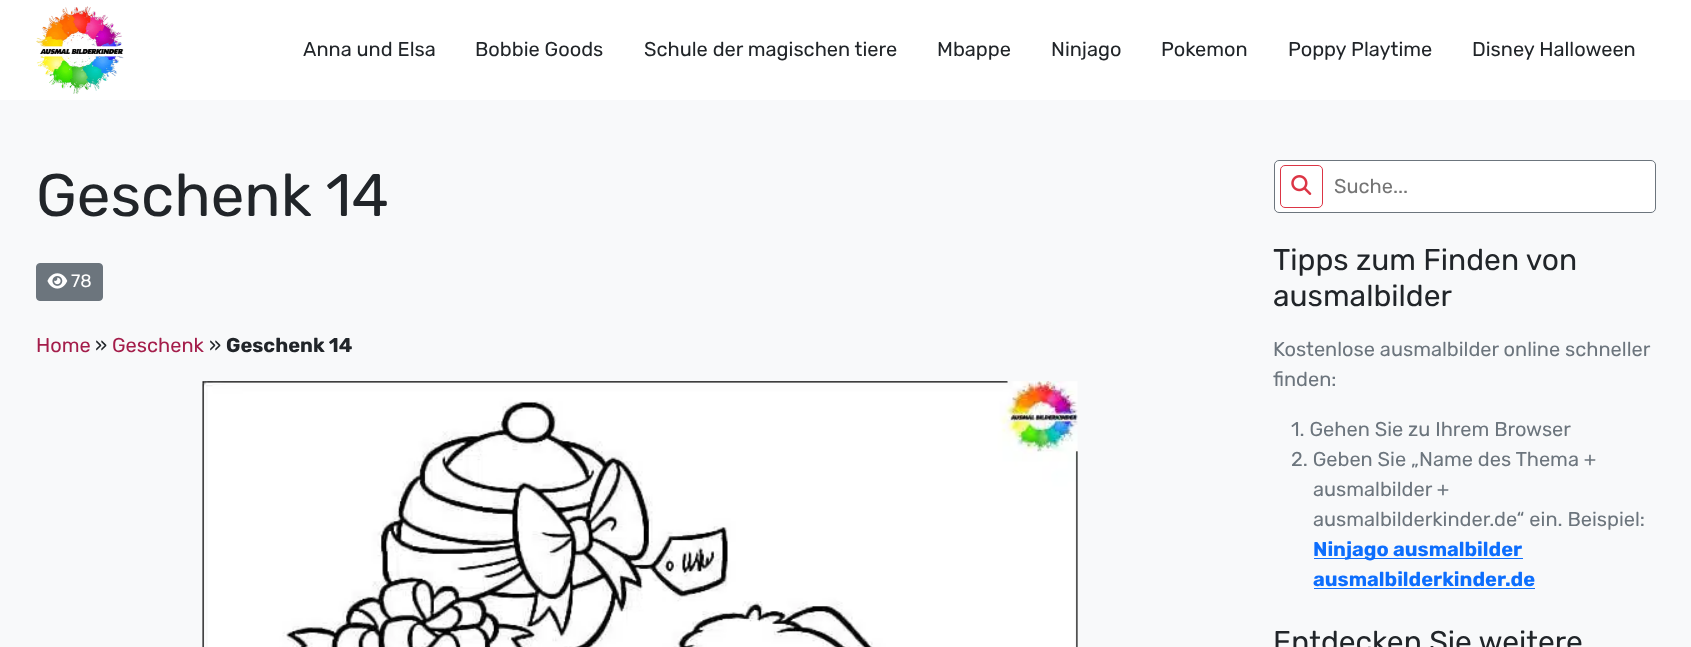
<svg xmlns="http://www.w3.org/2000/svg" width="1691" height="647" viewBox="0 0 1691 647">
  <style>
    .t1 { font: 20px Rubik; fill: #212529; }
    .t2 { font: 60px Rubik; fill: #212529; }
    .t3 { font: 18px Rubik; fill: #fff; }
    .t4 { font: 20px Rubik; fill: #a41d4a; }
    .t5 { font: bold 20px Rubik; fill: #212529; }
    .t6 { font: 20px Rubik; fill: #757575; }
    .t7 { font: 30px Rubik; fill: #212529; }
    .t8 { font: 20px Rubik; fill: #6c757d; }
    .t9 { font: bold 20px Rubik; fill: #0d6efd; }
  </style>
  <rect width="100%" height="100%" fill="#f8f9fa"/>
  <rect x="0" y="0" width="1691" height="100" fill="#fff"/>
  <image x="36" y="6" width="88" height="88" href="images/1.png"/>
  <text x="303" y="56" class="t1">Anna und Elsa</text>
  <text x="475" y="56" class="t1">Bobbie Goods</text>
  <text x="644" y="56" class="t1">Schule der magischen tiere</text>
  <text x="937" y="56" class="t1">Mbappe</text>
  <text x="1051" y="56" class="t1">Ninjago</text>
  <text x="1161" y="56" class="t1">Pokemon</text>
  <text x="1288" y="56" class="t1">Poppy Playtime</text>
  <text x="1472" y="56" class="t1">Disney Halloween</text>
  <text x="36" y="216" class="t2">Geschenk 14</text>
  <rect x="36.5" y="263.5" width="66" height="37" rx="3.5" fill="#6c757d" stroke="#6c757d"/>
  <image x="47" y="273" width="21" height="16" href="images/2.png"/>
  <text x="71" y="287" class="t3">78</text>
  <text x="36" y="352" class="t4">Home</text>
  <text x="95" y="352" class="t1">»</text>
  <text x="112" y="352" class="t4">Geschenk</text>
  <text x="209" y="352" class="t1">»</text>
  <text x="226" y="352" class="t5">Geschenk 14</text>
  <image x="202" y="381" width="876" height="266" href="images/3.png"/>
  <rect x="1274.5" y="160.5" width="381" height="52" rx="4.5" fill="#fff" stroke="#6c757d"/>
  <rect x="1280.5" y="165.5" width="42" height="42" rx="4.5" fill="none" stroke="#dc3545"/>
  <image x="1291" y="175" width="21" height="20" href="images/4.png"/>
  <text x="1334" y="193" class="t6">Suche...</text>
  <text x="1273" y="270" class="t7">Tipps zum Finden von</text>
  <text x="1273" y="306" class="t7">ausmalbilder</text>
  <text x="1273" y="356" class="t8">Kostenlose ausmalbilder online schneller</text>
  <text x="1273" y="386" class="t8">finden:</text>
  <text x="1291" y="436" class="t8">1. Gehen Sie zu Ihrem Browser</text>
  <text x="1291" y="466" class="t8">2. Geben Sie „Name des Thema +</text>
  <text x="1313" y="496" class="t8">ausmalbilder +</text>
  <text x="1313" y="526" class="t8">ausmalbilderkinder.de“ ein. Beispiel:</text>
  <rect x="1314" y="558" width="209" height="1" fill="#0d6efd"/>
  <text x="1313" y="556" class="t9">Ninjago ausmalbilder</text>
  <text x="1313" y="586" class="t9">ausmalbilderkinder.de</text>
  <rect x="1314" y="588" width="221" height="1" fill="#0d6efd"/>
  <text x="1273" y="652" class="t7">Entdecken Sie weitere</text>
</svg>
